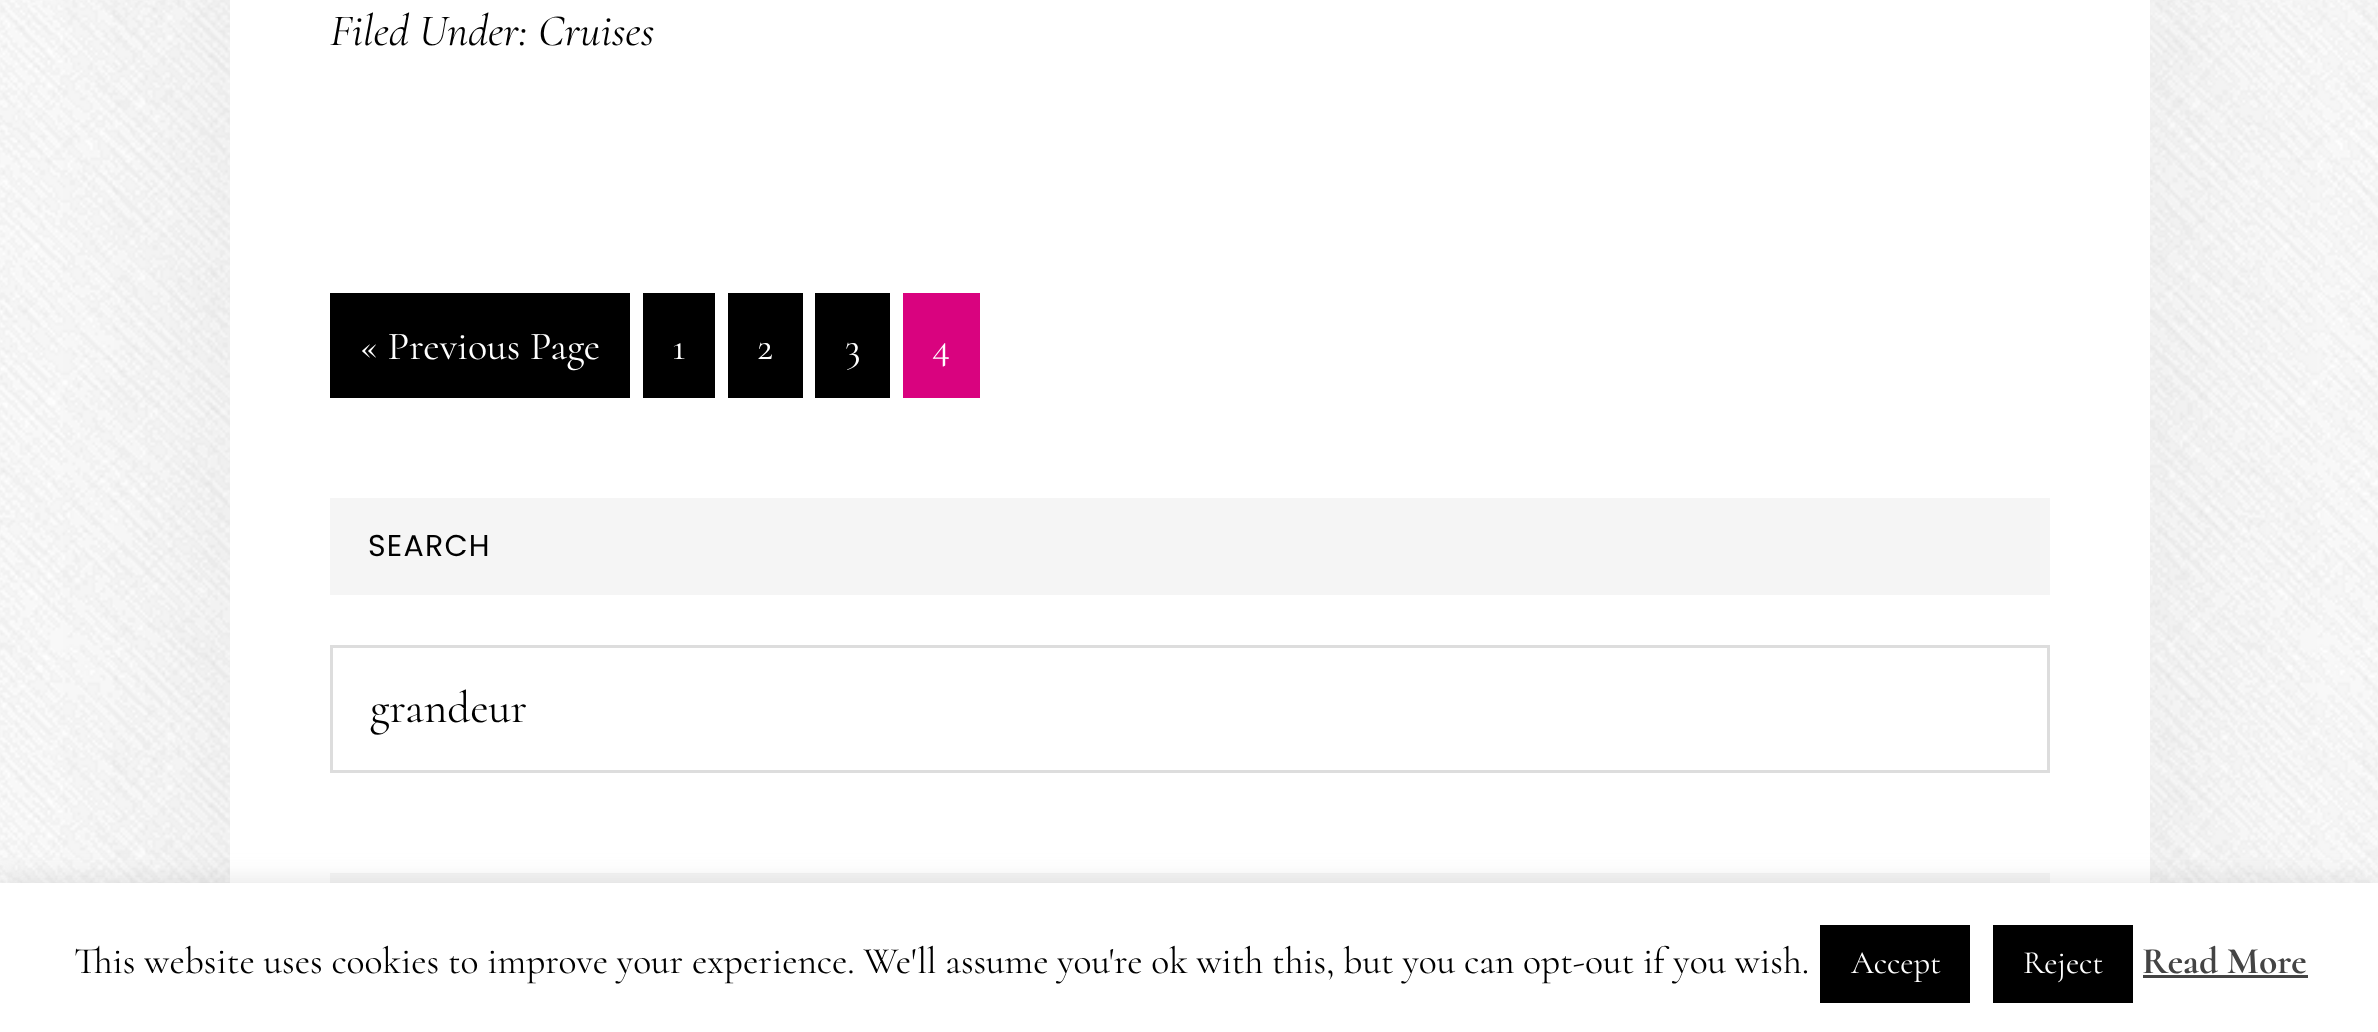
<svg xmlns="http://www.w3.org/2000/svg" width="2378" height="1032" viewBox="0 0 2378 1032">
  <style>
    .t1 { font: italic 45px Cormorant; fill: #000; }
    .t2 { font: 40px Cormorant; fill: #fff; }
    .t3 { font: 30px Poppins; letter-spacing: 1.25px; fill: #000; }
    .t4 { font: 45px Cormorant; fill: #000; }
    .t5 { font: 37.5px Cormorant; fill: #000; }
    .t6 { font: 32.5px Cormorant; fill: #fff; }
    .t7 { font: bold 37.5px Cormorant; fill: #444; }
  </style>
  <rect width="100%" height="100%" fill="#fff"/>
  <image x="0" y="0" width="2378" height="883" href="images/1.png"/>
  <rect x="230" y="-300" width="1920" height="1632" fill="#0000000d" filter="blur(100px)"/>
  <rect x="230" y="0" width="1920" height="883" fill="#fff"/>
  <text x="330" y="45" class="t1">Filed Under: Cruises</text>
  <rect x="330" y="293" width="300" height="105" fill="#000"/>
  <text x="360" y="359" class="t2">« Previous Page</text>
  <rect x="643" y="293" width="72" height="105" fill="#000"/>
  <text x="672" y="359" class="t2">1</text>
  <rect x="728" y="293" width="75" height="105" fill="#000"/>
  <text x="757" y="359" class="t2">2</text>
  <rect x="815" y="293" width="75" height="105" fill="#000"/>
  <text x="845" y="359" class="t2">3</text>
  <rect x="903" y="293" width="77" height="105" fill="#d9037f"/>
  <text x="932" y="359" class="t2">4</text>
  <rect x="330" y="498" width="1720" height="97" fill="#f5f5f5"/>
  <text x="368" y="556" class="t3">SEARCH</text>
  <rect x="331.5" y="646.5" width="1717" height="125" fill="none" stroke="#ddd" stroke-width="3"/>
  <text x="370" y="722" class="t4">grandeur</text>
  <rect x="330" y="873" width="1720" height="10" fill="#f5f5f5"/>
  <rect x="0" y="880" width="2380" height="150" fill="#acabab4d" filter="blur(12.5px)"/>
  <rect x="0" y="883" width="2378" height="149" fill="#fff"/>
  <text x="74" y="973" class="t5">This website uses cookies to improve your experience. We'll assume you're ok with this, but you can opt-out if you wish.</text>
  <rect x="1820" y="925" width="150" height="78" fill="#000"/>
  <text x="1851" y="973" class="t6">Accept</text>
  <rect x="1993" y="925" width="140" height="78" fill="#000"/>
  <text x="2023" y="973" class="t6">Reject</text>
  <text x="2142" y="973" class="t7">Read More</text>
  <rect x="2143" y="975" width="165" height="3" fill="#444"/>
</svg>
